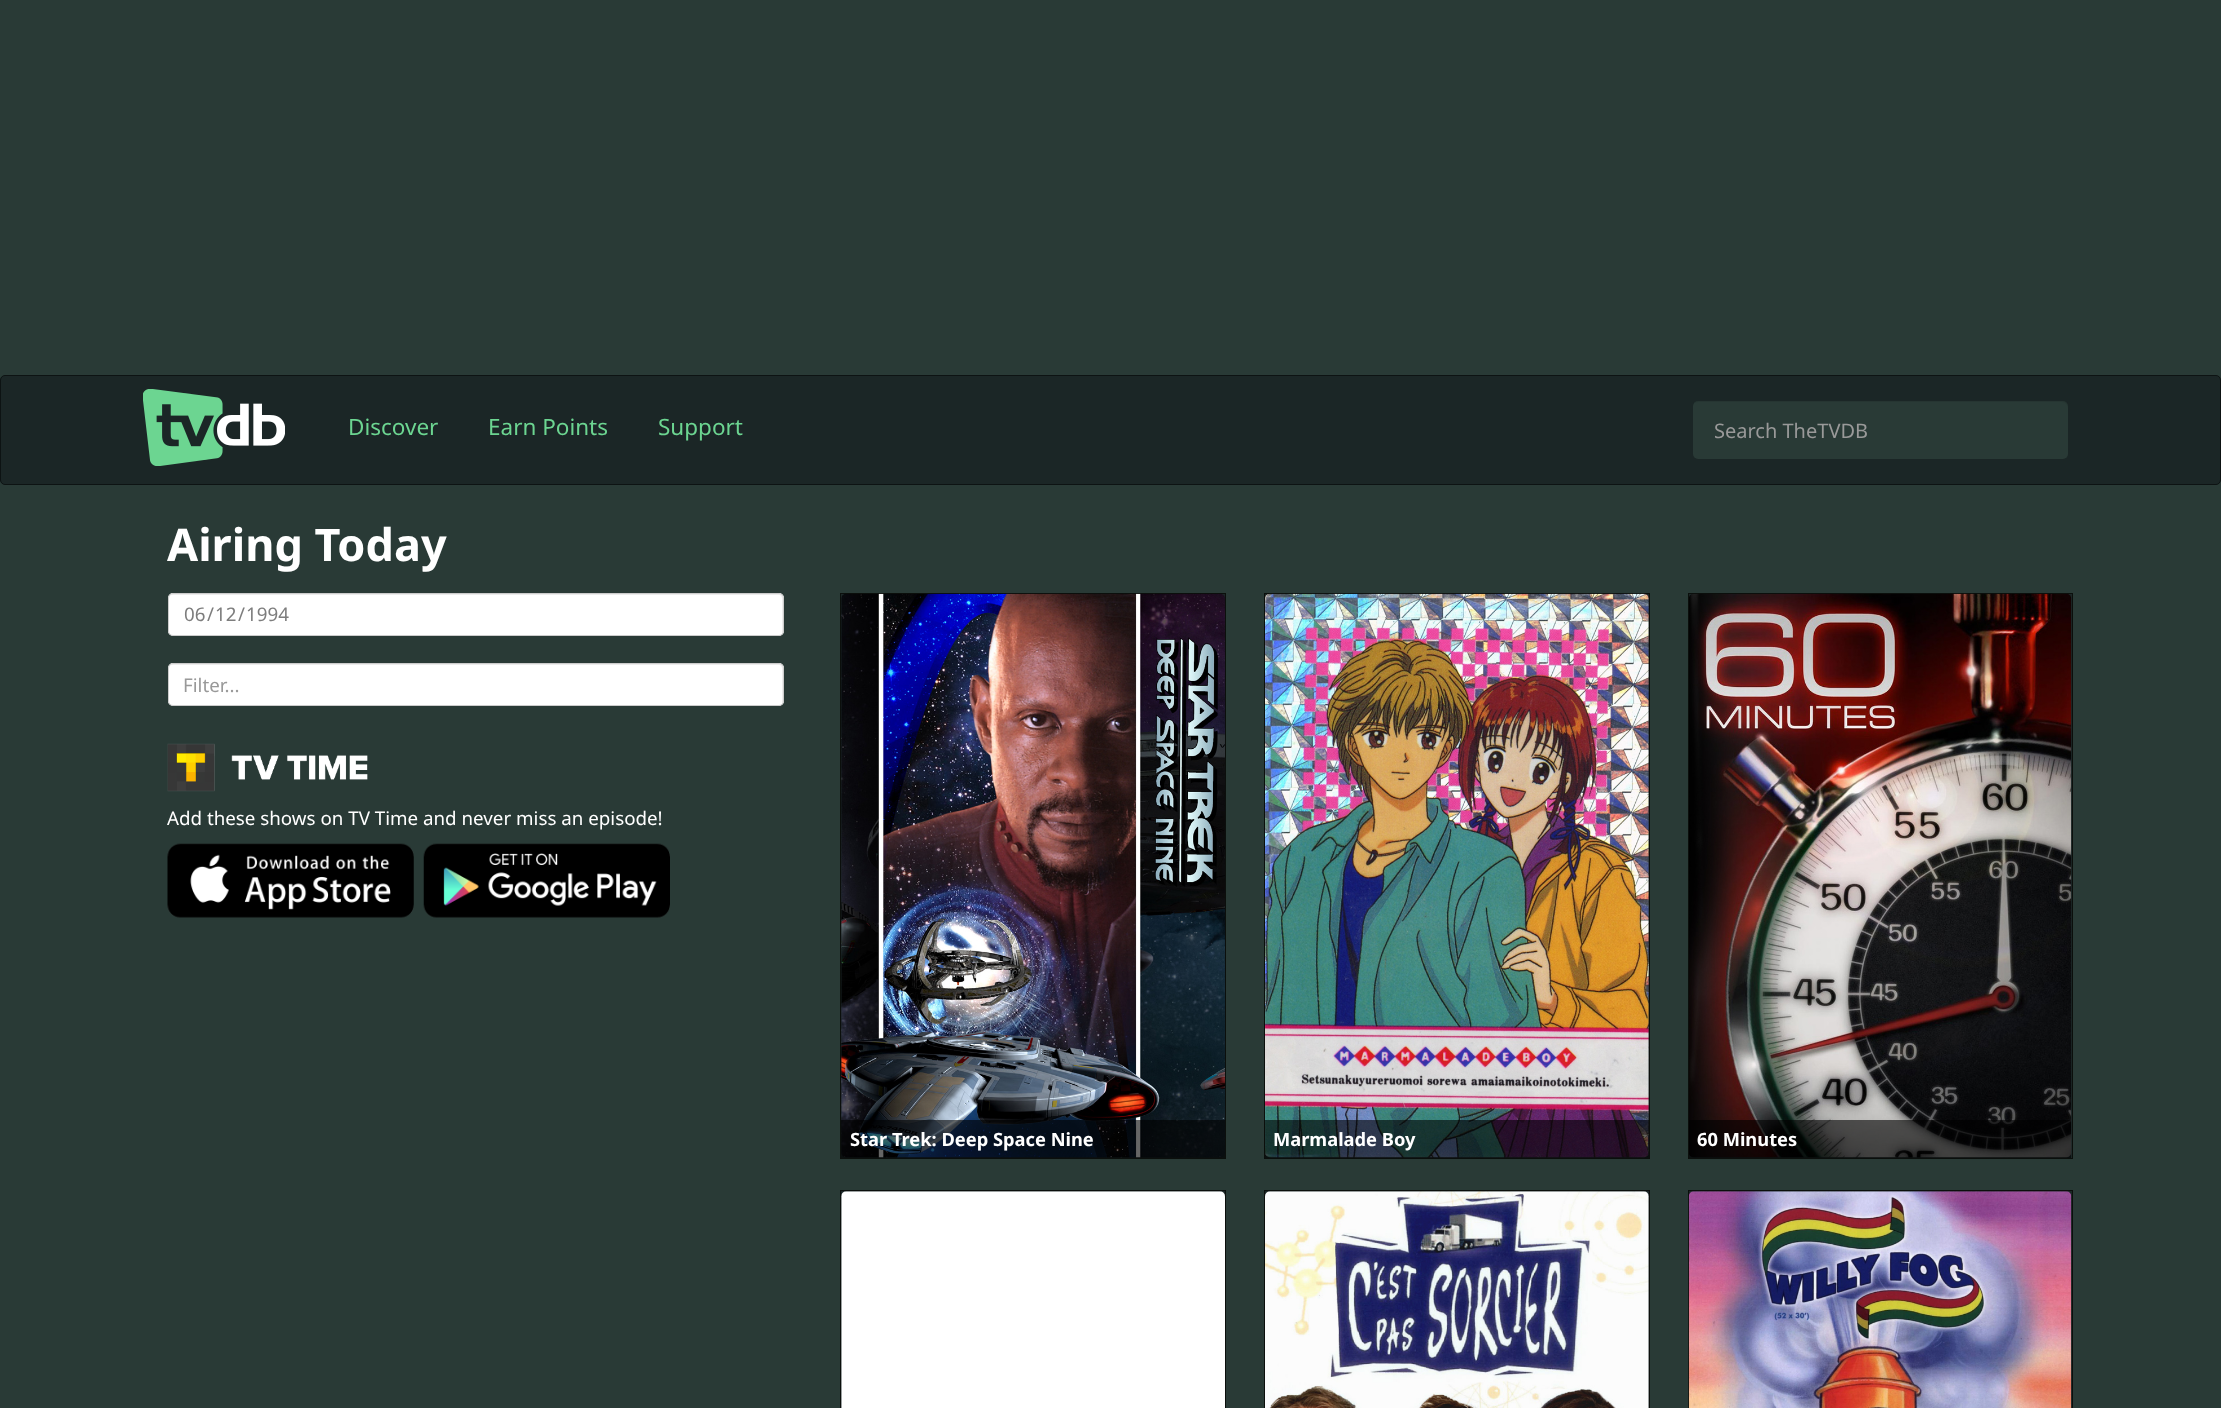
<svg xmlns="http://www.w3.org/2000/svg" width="2221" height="1408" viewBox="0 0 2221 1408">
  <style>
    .t1 { font: 22.5px Noto Sans; fill: #6cd591; }
    .t2 { font: 20px Noto Sans; fill: #999; }
    .t3 { font: bold 45px Noto Sans; fill: #fff; }
    .t4 { font: 18.75px Noto Sans; fill: #7d7d7d; }
    .t5 { font: 18.75px Noto Sans; fill: #999; }
    .t6 { font: 18.75px Noto Sans; fill: #fff; }
    .t7 { font: bold 18.3px Noto Sans; fill: #fff; }
  </style>
  <rect width="100%" height="100%" fill="#293a36"/>
  <rect x="0.5" y="375.5" width="2220" height="109" rx="4.5" fill="#1b2626" stroke="#0d1313"/>
  <image x="143" y="389" width="142" height="77" href="images/1.png"/>
  <text x="348" y="435" class="t1">Discover</text>
  <text x="488" y="435" class="t1">Earn Points</text>
  <text x="658" y="435" class="t1">Support</text>
  <rect x="1693" y="401" width="375" height="58" rx="5" fill="#293a36"/>
  <path d="M1698 402H2062C2065 402 2068 405 2068 408V406C2068 403 2066 401 2063 401H1698C1696 401 1694 403 1693 405C1694 403 1696 402 1698 402Z" fill="#00000012"/>
  <text x="1714" y="438" class="t2">Search TheTVDB</text>
  <text x="167" y="561" class="t3">Airing Today</text>
  <rect x="168" y="593" width="616" height="43" rx="5" fill="#fff"/>
  <path d="M172 595H779C781 595 782 597 782 599V634L783 632V597C783 596 782 595 781 594H173C170 594 169 596 169 599C169 597 170 595 172 595Z" fill="#ececec"/>
  <rect x="168.5" y="593.5" width="615" height="42" rx="4.5" fill="none" stroke="#ccc"/>
  <text x="184" y="621" class="t4">06</text>
  <text x="207" y="621" class="t4">/</text>
  <text x="215" y="621" class="t4">12</text>
  <text x="238" y="621" class="t4">/</text>
  <text x="246" y="621" class="t4">1994</text>
  <rect x="168" y="663" width="616" height="43" rx="5" fill="#fff"/>
  <path d="M172 665H779C781 665 782 667 782 669V704L783 702V667C783 666 782 665 781 664H173C170 664 169 666 169 669C169 667 170 665 172 665Z" fill="#ececec"/>
  <rect x="168.5" y="663.5" width="615" height="42" rx="4.5" fill="none" stroke="#ccc"/>
  <text x="183" y="692" class="t5">Filter...</text>
  <image x="167" y="743" width="201" height="49" href="images/2.png"/>
  <text x="167" y="825" class="t6">Add these shows on TV Time and never miss an episode!</text>
  <image x="167" y="843" width="247" height="75" href="images/3.png"/>
  <image x="423" y="843" width="247" height="75" href="images/4.png"/>
  <rect x="840.5" y="593.5" width="385" height="565" fill="#1b2626" stroke="#0b0f0c"/>
  <image x="841" y="593" width="384" height="565" href="images/5.png"/>
  <rect x="841" y="1120" width="384" height="38" fill="#00000099"/>
  <text x="850" y="1146" class="t7">Star Trek: Deep Space Nine</text>
  <rect x="1264.5" y="593.5" width="385" height="565" fill="#1b2626" stroke="#0b0f0c"/>
  <image x="1265" y="593" width="384" height="565" href="images/6.png"/>
  <rect x="1265" y="1120" width="384" height="38" fill="#00000099"/>
  <text x="1273" y="1146" class="t7">Marmalade Boy</text>
  <rect x="1688.5" y="593.5" width="384" height="565" fill="#1b2626" stroke="#0b0f0c"/>
  <image x="1689" y="593" width="383" height="565" href="images/7.png"/>
  <rect x="1689" y="1120" width="382" height="38" fill="#00000099"/>
  <text x="1697" y="1146" class="t7">60 Minutes</text>
  <rect x="840.5" y="1190.5" width="385" height="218" fill="#1b2626" stroke="#0b0f0c"/>
  <image x="841" y="1191" width="384" height="217" href="images/8.png"/>
  <rect x="1264.5" y="1190.5" width="385" height="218" fill="#1b2626" stroke="#0b0f0c"/>
  <image x="1265" y="1191" width="384" height="217" href="images/9.png"/>
  <rect x="1688.5" y="1190.5" width="384" height="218" fill="#1b2626" stroke="#0b0f0c"/>
  <image x="1688" y="1191" width="384" height="217" href="images/10.png"/>
</svg>
